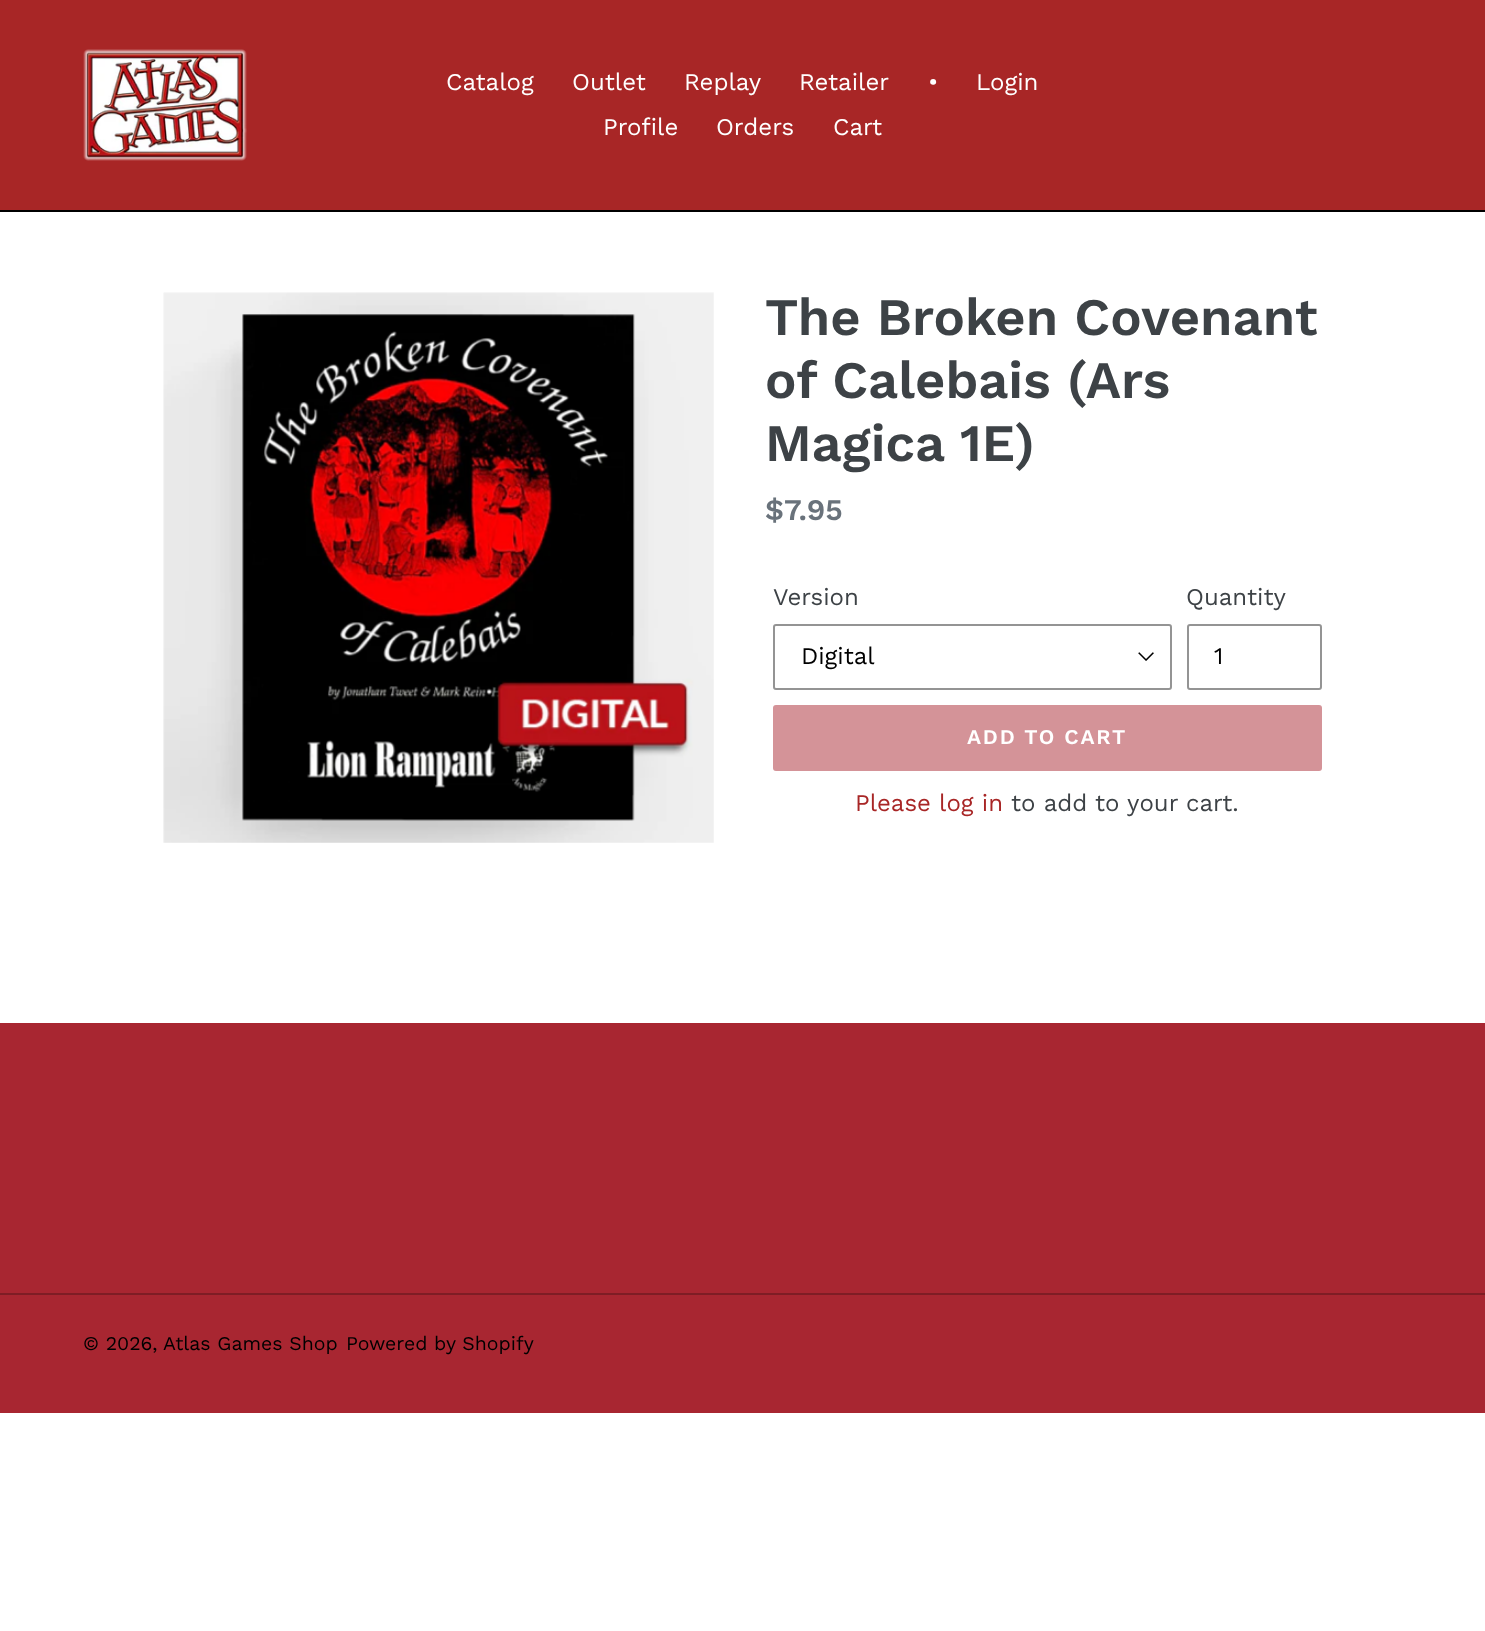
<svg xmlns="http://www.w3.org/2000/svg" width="1485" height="1631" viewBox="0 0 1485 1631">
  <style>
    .t1 { font: 24px Work Sans; fill: #fff; }
    .t2 { font: 600 52.5px Work Sans; fill: #3d4246; }
    .t3 { font: 600 30px Work Sans; fill: #69727b; }
    .t4 { font: 24px Work Sans; fill: #3d4246; }
    .t5 { font: 24px Work Sans; fill: #000; }
    .t6 { font: 600 21px Work Sans; letter-spacing: 1.75px; fill: #fff; }
    .t7 { font: 24px Work Sans; fill: #a82626; }
    .t8 { font: 19.5px Work Sans; fill: #000; }
  </style>
  <rect width="100%" height="100%" fill="#fff"/>
  <rect x="0" y="0" width="1485" height="210" fill="#a82626"/>
  <rect x="0" y="210" width="1485" height="2" fill="#000"/>
  <image x="83" y="49" width="164" height="112" href="images/1.png"/>
  <text x="446" y="90" class="t1">Catalog</text>
  <text x="572" y="90" class="t1">Outlet</text>
  <text x="684" y="90" class="t1">Replay</text>
  <text x="799" y="90" class="t1">Retailer</text>
  <text x="928" y="90" class="t1">•</text>
  <text x="976" y="90" class="t1">Login</text>
  <text x="603" y="135" class="t1">Profile</text>
  <text x="716" y="135" class="t1">Orders</text>
  <text x="833" y="135" class="t1">Cart</text>
  <image x="163" y="292" width="551" height="551" href="images/2.png"/>
  <text x="765" y="335" class="t2">The Broken Covenant</text>
  <text x="765" y="398" class="t2">of Calebais (Ars</text>
  <text x="765" y="461" class="t2">Magica 1E)</text>
  <text x="765" y="520" class="t3">$7.95</text>
  <text x="773" y="605" class="t4">Version</text>
  <image x="1138" y="652" width="16" height="9" href="images/3.png"/>
  <rect x="774" y="625" width="397" height="64" rx="2" fill="none" stroke="#949494" stroke-width="2"/>
  <text x="801" y="664" class="t5">Digital</text>
  <text x="1186" y="605" class="t4">Quantity</text>
  <rect x="1188" y="625" width="133" height="64" rx="2" fill="none" stroke="#949494" stroke-width="2"/>
  <text x="1214" y="664" class="t5">1</text>
  <rect x="773" y="705" width="549" height="66" rx="3" fill="#d49398"/>
  <text x="967" y="744" class="t6">ADD TO CART</text>
  <text x="855" y="811" class="t7">Please log in</text>
  <text x="1011" y="811" class="t4">to add to your cart.</text>
  <rect x="0" y="1023" width="1485" height="390" fill="#a82631"/>
  <rect x="0" y="1293" width="1485" height="2" fill="#7e1d25"/>
  <text x="83" y="1350" class="t8">© 2026,</text>
  <text x="163" y="1350" class="t8">Atlas Games Shop</text>
  <text x="346" y="1350" class="t8">Powered by Shopify</text>
</svg>
